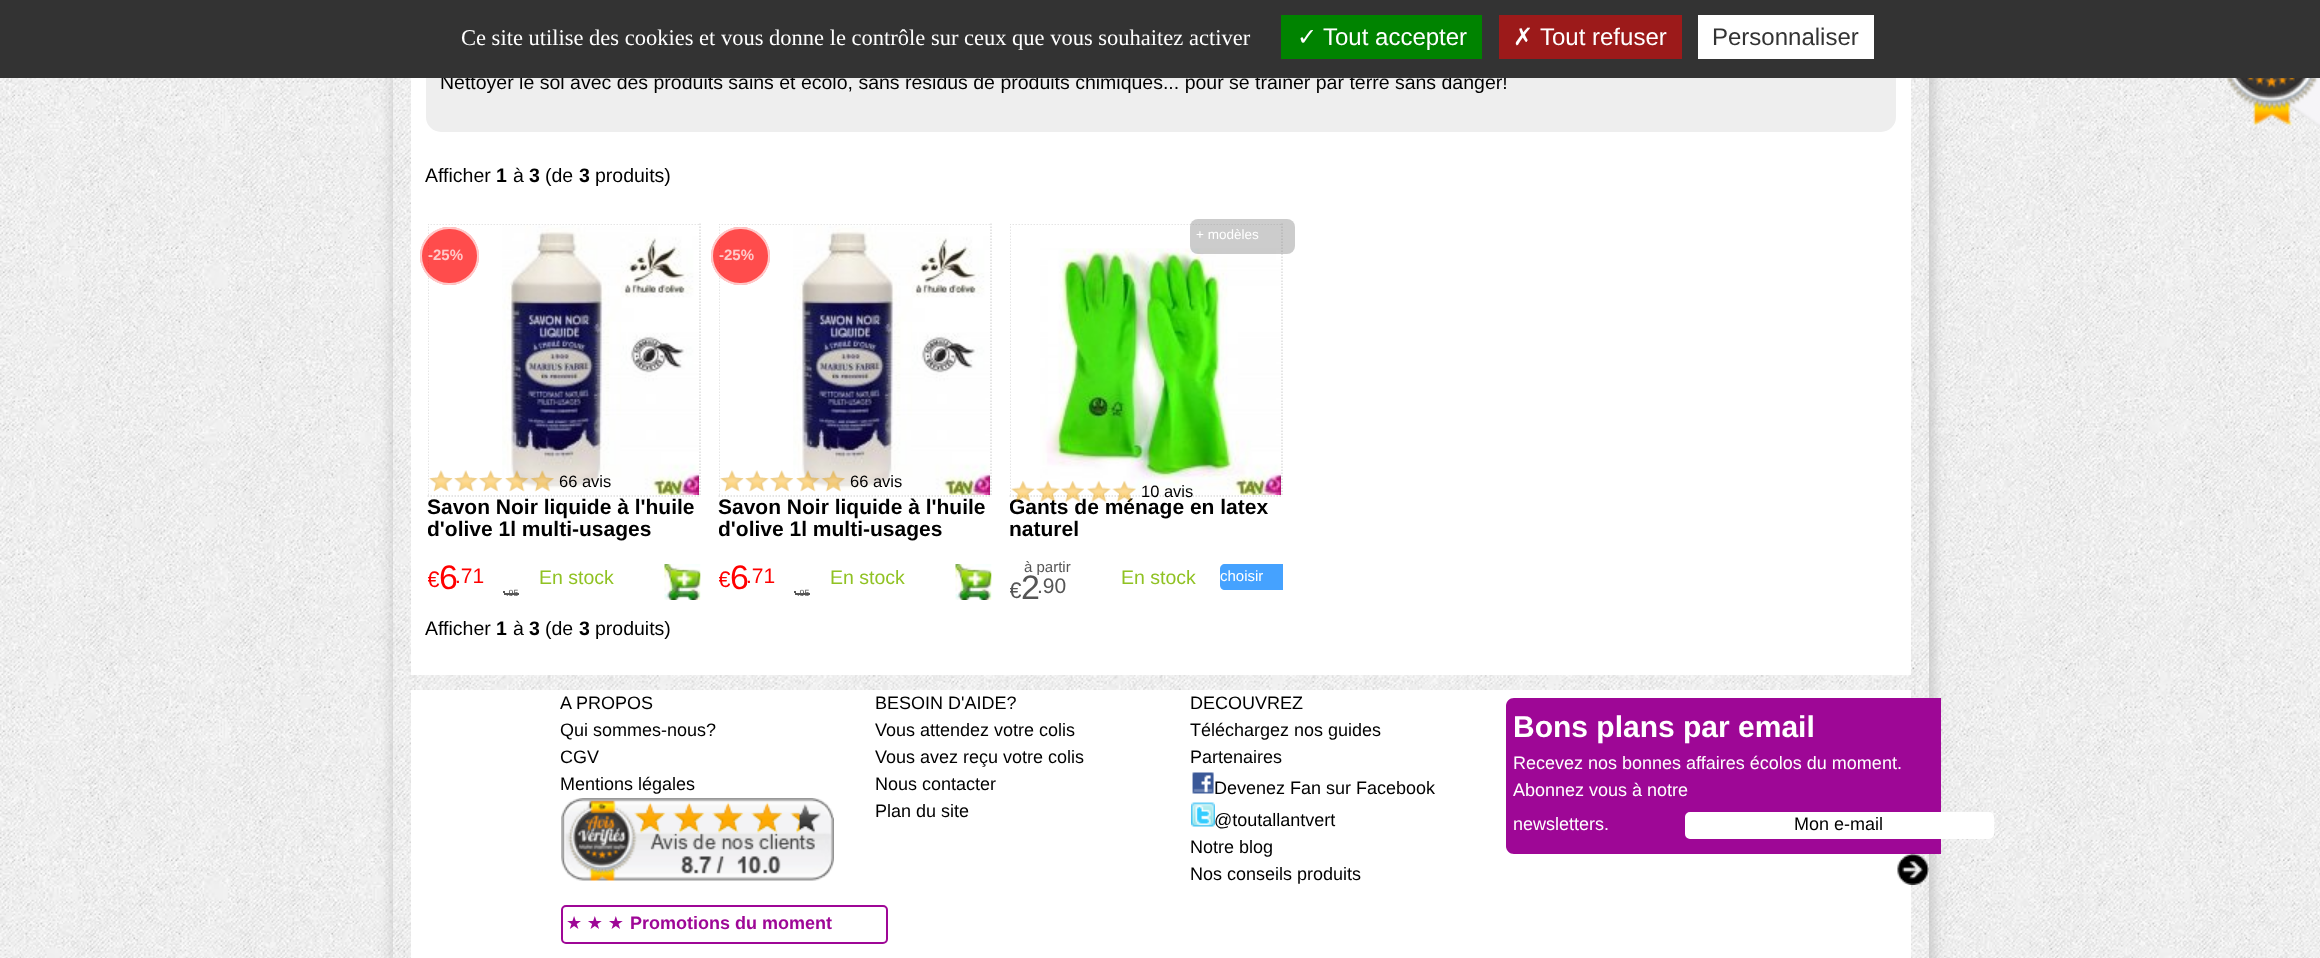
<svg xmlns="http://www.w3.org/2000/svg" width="2320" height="958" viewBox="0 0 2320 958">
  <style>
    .t1 { font: 19.5px Liberation Sans; fill: #000; }
    .t2 { font: 22.5px Liberation Serif; fill: #fff; }
    .t3 { font: 24px DejaVu Sans; fill: #fff; }
    .t4 { font: 24px Liberation Sans; fill: #fff; }
    .t5 { font: 24px Liberation Sans; fill: #333; }
    .t6 { font: bold 19.5px Liberation Sans; fill: #000; }
    .t7 { font: bold 15px Liberation Sans; fill: #ffc9c9; }
    .t8 { font: 22.5px Liberation Sans; fill: #f00; }
    .t9 { font: 34px Liberation Sans; letter-spacing: -3px; fill: #f00; }
    .t10 { font: 21px Liberation Sans; fill: #f00; }
    .t11 { font: 9px Liberation Sans; fill: #555; }
    .t12 { font: 16.5px Liberation Sans; fill: #000; }
    .t13 { font: bold 21px Liberation Sans; fill: #000; }
    .t14 { font: 19.5px Liberation Sans; fill: #90c223; }
    .t15 { font: 13.5px Liberation Sans; fill: #fff; }
    .t16 { font: 15px Liberation Sans; fill: #555; }
    .t17 { font: 22.5px Liberation Sans; fill: #555; }
    .t18 { font: 34px Liberation Sans; letter-spacing: -3px; fill: #555; }
    .t19 { font: 21px Liberation Sans; fill: #555; }
    .t20 { font: 15px Liberation Sans; fill: #fff; }
    .t21 { font: 18px Liberation Sans; fill: #000; }
    .t22 { font: bold 30px Liberation Sans; fill: #fff; }
    .t23 { font: 18px Liberation Sans; fill: #fff; }
    .t24 { font: 18px DejaVu Sans; fill: #9e0796; }
    .t25 { font: bold 18px Liberation Sans; fill: #9e0796; }
  </style>
  <defs>
    <clipPath id="clip1"><path d="M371 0H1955V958H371ZM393-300H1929V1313H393Z" clip-rule="evenodd"/></clipPath>
    <clipPath id="clip2"><rect x="428" y="224" width="273" height="390"/></clipPath>
    <clipPath id="clip3"><rect x="428" y="497" width="270" height="67"/></clipPath>
    <clipPath id="clip4"><rect x="719" y="224" width="273" height="390"/></clipPath>
    <clipPath id="clip5"><rect x="719" y="497" width="270" height="67"/></clipPath>
    <clipPath id="clip6"><rect x="1010" y="224" width="273" height="390"/></clipPath>
    <clipPath id="clip7"><rect x="1010" y="497" width="270" height="67"/></clipPath>
  </defs>
  <rect width="100%" height="100%" fill="#fff"/>
  <image x="0" y="78" width="2320" height="880" href="images/1.png"/>
  <g clip-path="url(#clip1)">
    <rect x="395" y="-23" width="1536" height="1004" fill="#bbb" filter="blur(7.5px)"/>
  </g>
  <rect x="411" y="78" width="1500" height="597" fill="#fff"/>
  <rect x="426" y="-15" width="1470" height="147" rx="15" fill="#eee"/>
  <text x="440" y="89" class="t1">Nettoyer le sol avec des produits sains et écolo, sans résidus de produits chimiques... pour se trainer par terre sans danger!</text>
  <rect x="0" y="0" width="2320" height="78" fill="#333"/>
  <text x="461" y="45" class="t2">Ce site utilise des cookies et vous donne le contrôle sur ceux que vous souhaitez activer</text>
  <rect x="1281" y="15" width="201" height="44" fill="#008300"/>
  <text x="1297" y="45" class="t3">✓</text>
  <text x="1323" y="45" class="t4">Tout accepter</text>
  <rect x="1499" y="15" width="183" height="44" fill="#9c1a1a"/>
  <text x="1513" y="45" class="t3">✗</text>
  <text x="1540" y="45" class="t4">Tout refuser</text>
  <rect x="1698" y="15" width="176" height="44" fill="#fff"/>
  <text x="1712" y="45" class="t5">Personnaliser</text>
  <text x="425" y="182" class="t1">Afficher</text>
  <text x="496" y="182" class="t6">1</text>
  <text x="513" y="182" class="t1">à</text>
  <text x="529" y="182" class="t6">3</text>
  <text x="545" y="182" class="t1">(de</text>
  <text x="579" y="182" class="t6">3</text>
  <text x="595" y="182" class="t1">produits)</text>
  <g clip-path="url(#clip2)">
    <path d="M427.5 224H700.5" fill="none" stroke="#ddd" stroke-width="1.5" stroke-dasharray="1.5 1.5"/>
  </g>
  <path d="M700 223.5V496.5" fill="none" stroke="#ddd" stroke-width="1.5" stroke-dasharray="1.5 1.5"/>
  <path d="M427.5 496H700.5" fill="none" stroke="#ddd" stroke-width="1.5" stroke-dasharray="1.5 1.5"/>
  <g clip-path="url(#clip2)">
    <path d="M428 223.5V496.5" fill="none" stroke="#ddd" stroke-width="1.5" stroke-dasharray="1.5 1.5"/>
  </g>
  <image x="502" y="225" width="197" height="270" href="images/2.png"/>
  <rect x="420" y="227" width="59" height="58" rx="29" fill="#ff0000b3"/>
  <rect x="421" y="228" width="57" height="56" rx="28" fill="none" stroke="#ffffffb3" stroke-width="2"/>
  <text x="428" y="260" class="t7">-25%</text>
  <g clip-path="url(#clip2)">
    <text x="427" y="587" class="t8">€</text>
  </g>
  <text x="439" y="589" class="t9">6</text>
  <text x="455" y="583" class="t10">.71</text>
  <rect x="503" y="591" width="2" height="2" fill="#555"/>
  <text x="506" y="596" class="t11">.95</text>
  <rect x="507" y="593" width="12" height="2" fill="#555"/>
  <rect x="504" y="593" width="3" height="2" fill="#555"/>
  <image x="429" y="470" width="125" height="22" href="images/3.png"/>
  <text x="559" y="487" class="t12">66 avis</text>
  <text x="427" y="514" class="t13">Savon Noir liquide à l'huile</text>
  <g clip-path="url(#clip3)">
    <text x="427" y="536" class="t13">d'olive 1l multi-usages</text>
  </g>
  <text x="539" y="584" class="t14">En stock</text>
  <image x="664" y="564" width="37" height="36" href="images/4.png"/>
  <g clip-path="url(#clip4)">
    <path d="M718.5 224H991.5" fill="none" stroke="#ddd" stroke-width="1.5" stroke-dasharray="1.5 1.5"/>
  </g>
  <path d="M991 223.5V496.5" fill="none" stroke="#ddd" stroke-width="1.5" stroke-dasharray="1.5 1.5"/>
  <path d="M718.5 496H991.5" fill="none" stroke="#ddd" stroke-width="1.5" stroke-dasharray="1.5 1.5"/>
  <g clip-path="url(#clip4)">
    <path d="M719 223.5V496.5" fill="none" stroke="#ddd" stroke-width="1.5" stroke-dasharray="1.5 1.5"/>
  </g>
  <image x="793" y="225" width="197" height="270" href="images/5.png"/>
  <rect x="711" y="227" width="59" height="58" rx="29" fill="#ff0000b3"/>
  <rect x="712" y="228" width="57" height="56" rx="28" fill="none" stroke="#ffffffb3" stroke-width="2"/>
  <text x="719" y="260" class="t7">-25%</text>
  <g clip-path="url(#clip4)">
    <text x="718" y="587" class="t8">€</text>
  </g>
  <text x="730" y="589" class="t9">6</text>
  <text x="746" y="583" class="t10">.71</text>
  <rect x="794" y="591" width="2" height="2" fill="#555"/>
  <text x="797" y="596" class="t11">.95</text>
  <rect x="798" y="593" width="12" height="2" fill="#555"/>
  <rect x="795" y="593" width="3" height="2" fill="#555"/>
  <image x="720" y="470" width="125" height="22" href="images/6.png"/>
  <text x="850" y="487" class="t12">66 avis</text>
  <text x="718" y="514" class="t13">Savon Noir liquide à l'huile</text>
  <g clip-path="url(#clip5)">
    <text x="718" y="536" class="t13">d'olive 1l multi-usages</text>
  </g>
  <text x="830" y="584" class="t14">En stock</text>
  <image x="955" y="564" width="37" height="36" href="images/7.png"/>
  <g clip-path="url(#clip6)">
    <path d="M1009.5 224H1282.5" fill="none" stroke="#ddd" stroke-width="1.5" stroke-dasharray="1.5 1.5"/>
  </g>
  <path d="M1282 223.5V496.5" fill="none" stroke="#ddd" stroke-width="1.5" stroke-dasharray="1.5 1.5"/>
  <path d="M1009.5 496H1282.5" fill="none" stroke="#ddd" stroke-width="1.5" stroke-dasharray="1.5 1.5"/>
  <g clip-path="url(#clip6)">
    <path d="M1010 223.5V496.5" fill="none" stroke="#ddd" stroke-width="1.5" stroke-dasharray="1.5 1.5"/>
  </g>
  <image x="1040" y="248" width="241" height="247" href="images/8.png"/>
  <rect x="1190" y="219" width="105" height="35" rx="8" fill="#80808066"/>
  <text x="1196" y="239" class="t15">+ modèles</text>
  <g clip-path="url(#clip7)">
    <text x="1009" y="514" class="t13">Gants de ménage en latex</text>
  </g>
  <image x="1011" y="480" width="125" height="23" href="images/9.png"/>
  <text x="1141" y="497" class="t12">10 avis</text>
  <text x="1009" y="536" class="t13">naturel</text>
  <text x="1024" y="572" class="t16">à partir</text>
  <g clip-path="url(#clip6)">
    <text x="1009" y="598" class="t17">€</text>
  </g>
  <text x="1021" y="599" class="t18">2</text>
  <text x="1037" y="593" class="t19">.90</text>
  <text x="1121" y="584" class="t14">En stock</text>
  <path d="M1225 564H1283V590H1225C1222 590 1220 588 1220 585V569C1220 566 1222 564 1225 564Z" fill="#45a2ff"/>
  <text x="1220" y="581" class="t20">choisir</text>
  <text x="425" y="635" class="t1">Afficher</text>
  <text x="496" y="635" class="t6">1</text>
  <text x="513" y="635" class="t1">à</text>
  <text x="529" y="635" class="t6">3</text>
  <text x="545" y="635" class="t1">(de</text>
  <text x="579" y="635" class="t6">3</text>
  <text x="595" y="635" class="t1">produits)</text>
  <rect x="411" y="690" width="1500" height="268" fill="#fff"/>
  <text x="560" y="709" class="t21">A PROPOS</text>
  <text x="560" y="736" class="t21">Qui sommes-nous?</text>
  <text x="560" y="763" class="t21">CGV</text>
  <text x="560" y="790" class="t21">Mentions légales</text>
  <image x="561" y="798" width="273" height="83" href="images/10.png"/>
  <text x="875" y="709" class="t21">BESOIN D'AIDE?</text>
  <text x="875" y="736" class="t21">Vous attendez votre colis</text>
  <text x="875" y="763" class="t21">Vous avez reçu votre colis</text>
  <text x="875" y="790" class="t21">Nous contacter</text>
  <text x="875" y="817" class="t21">Plan du site</text>
  <text x="1190" y="709" class="t21">DECOUVREZ</text>
  <text x="1190" y="736" class="t21">Téléchargez nos guides</text>
  <text x="1190" y="763" class="t21">Partenaires</text>
  <image x="1192" y="772" width="22" height="22" href="images/11.png"/>
  <text x="1214" y="794" class="t21">Devenez Fan sur Facebook</text>
  <image x="1191" y="802" width="24" height="25" href="images/12.png"/>
  <text x="1214" y="826" class="t21">@toutallantvert</text>
  <text x="1190" y="853" class="t21">Notre blog</text>
  <text x="1190" y="880" class="t21">Nos conseils produits</text>
  <path d="M1514 698H1941V854H1514C1509.5 854 1506 850.5 1506 846V706C1506 701.5 1509.5 698 1514 698Z" fill="#9e0796"/>
  <text x="1513" y="737" class="t22">Bons plans par email</text>
  <text x="1513" y="769" class="t23">Recevez nos bonnes affaires écolos du moment.</text>
  <text x="1513" y="796" class="t23">Abonnez vous à notre</text>
  <text x="1513" y="830" class="t23">newsletters.</text>
  <rect x="1686" y="813" width="307" height="25" rx="4" fill="#fff" stroke="#fff" stroke-width="2"/>
  <text x="1794" y="830" class="t21">Mon e-mail</text>
  <image x="1897" y="853" width="32" height="32" href="images/13.png"/>
  <rect x="562" y="906" width="325" height="37" rx="4" fill="none" stroke="#9e0796" stroke-width="2"/>
  <text x="566" y="929" word-spacing="-1" class="t24">★ ★ ★</text>
  <text x="630" y="929" class="t25">Promotions du moment</text>
  <image x="2226" y="78" width="94" height="50" href="images/14.png"/>
</svg>
